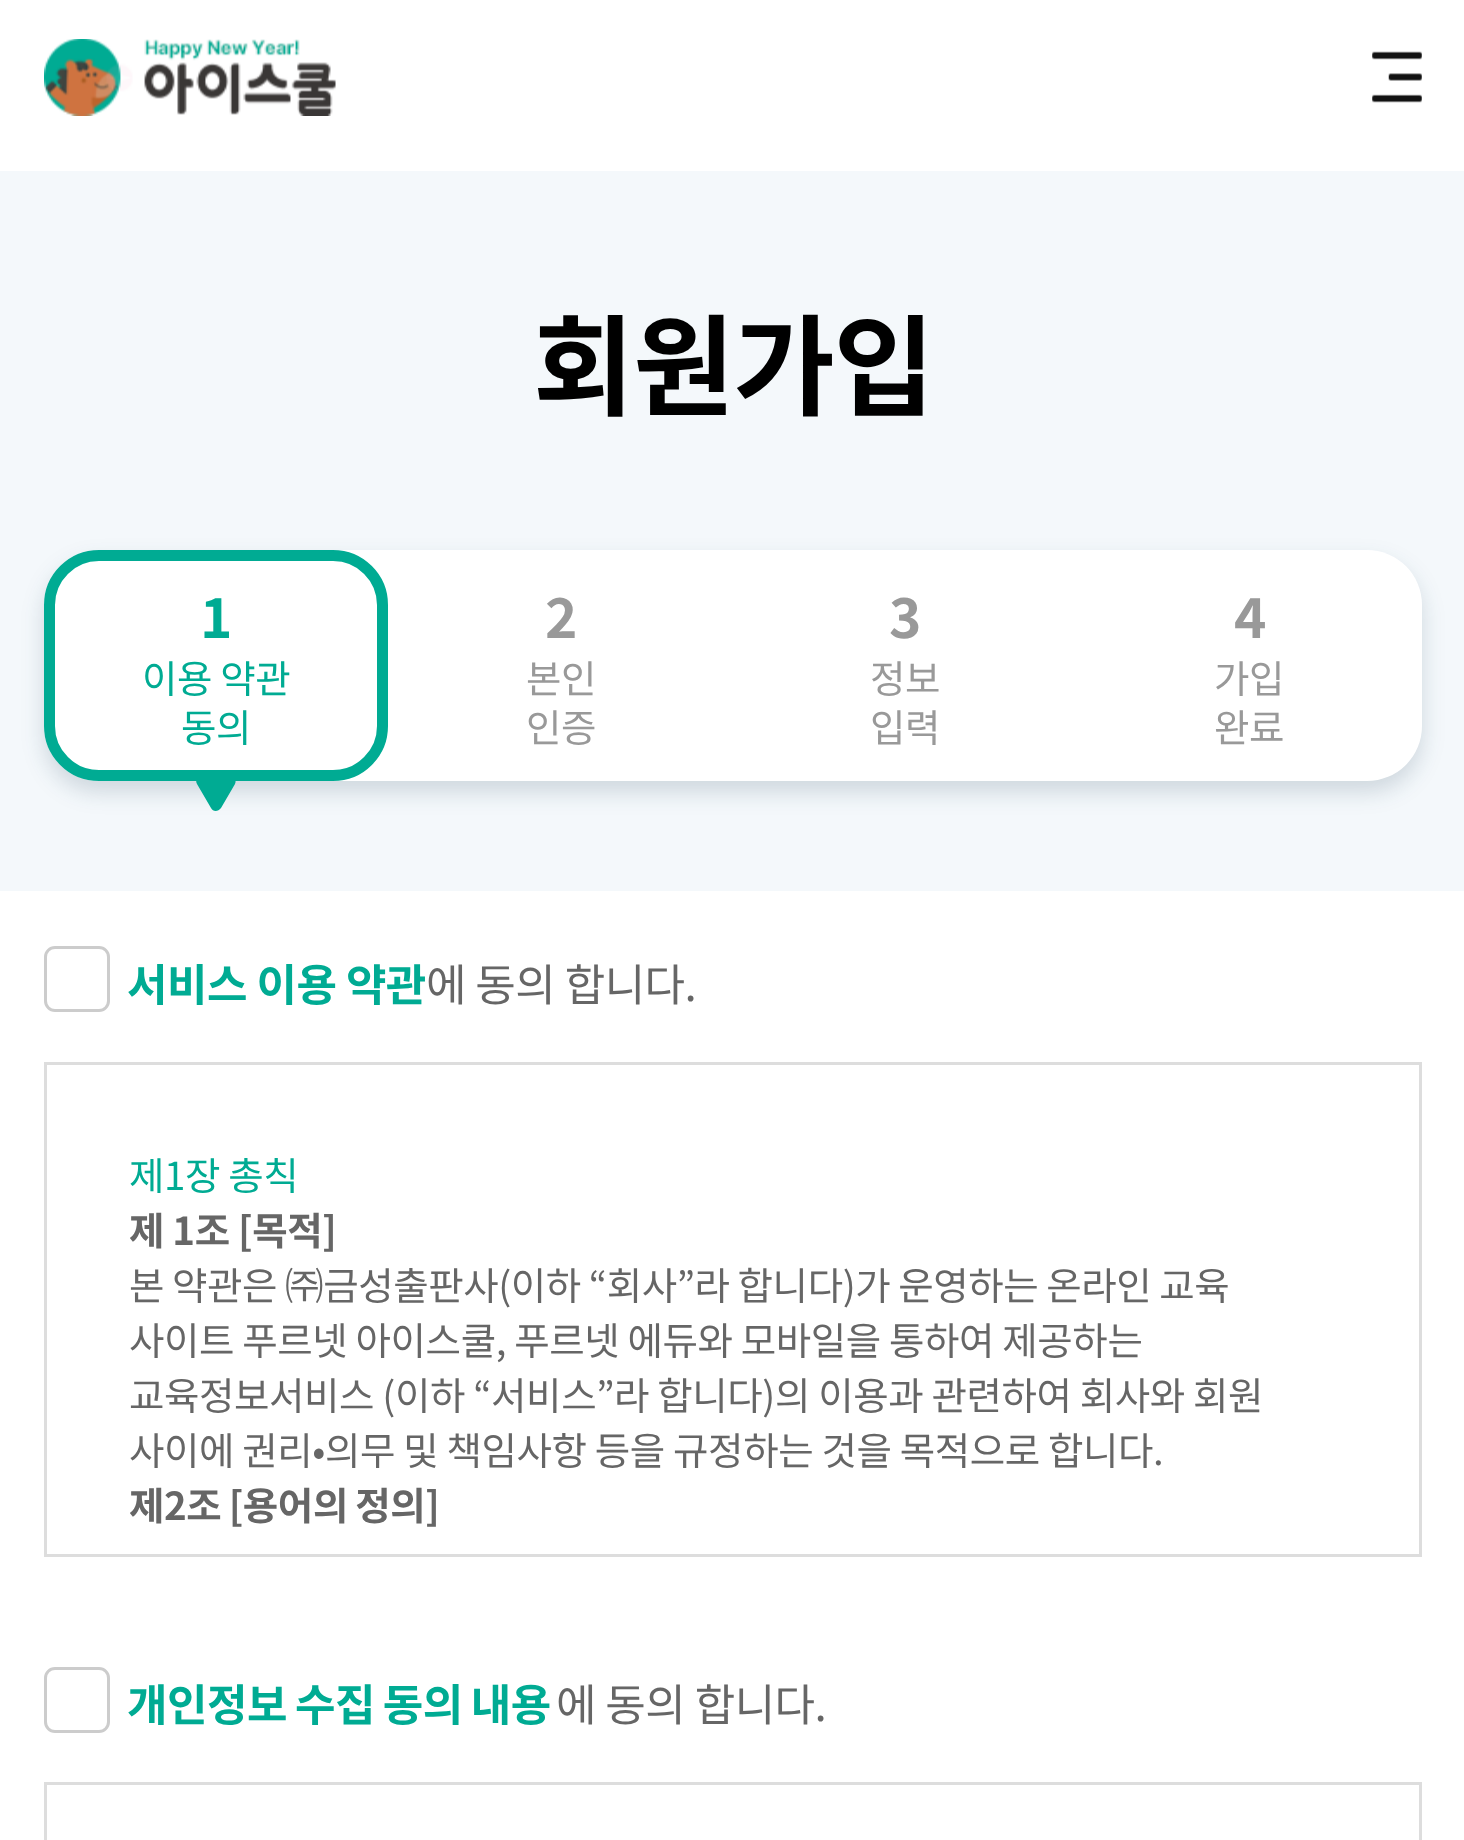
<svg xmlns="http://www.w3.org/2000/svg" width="1464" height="1840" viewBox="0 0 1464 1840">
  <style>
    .t1 { font: bold 110px Noto Sans KR; letter-spacing: -1px; fill: #000; }
    .t2 { font: bold 55px Noto Sans KR; letter-spacing: -1px; fill: #00ab93; }
    .t3 { font: 38.5px Noto Sans KR; letter-spacing: -0.4px; fill: #00ab93; }
    .t4 { font: bold 55px Noto Sans KR; letter-spacing: -1px; fill: #999; }
    .t5 { font: 38.5px Noto Sans KR; letter-spacing: -0.4px; fill: #999; }
    .t6 { font: bold 44px Noto Sans KR; letter-spacing: -0.5px; fill: #00ab93; }
    .t7 { font: 44px Noto Sans KR; letter-spacing: -0.5px; fill: #666; }
    .t8 { font: bold 38.5px Noto Sans KR; letter-spacing: -0.4px; fill: #666; }
    .t9 { font: 38.5px Noto Sans KR; letter-spacing: -0.4px; fill: #666; }
  </style>
  <rect width="100%" height="100%" fill="#fff"/>
  <image x="44" y="39" width="292" height="77" href="images/1.png"/>
  <image x="1372" y="51" width="50" height="52" href="images/2.png"/>
  <rect x="0" y="171" width="1464" height="720" fill="#f4f8fb"/>
  <text x="533" y="407" class="t1">회원가입</text>
  <rect x="44" y="561" width="1378" height="231" rx="55" fill="#0c324b29" filter="blur(11px)"/>
  <rect x="44" y="550" width="1378" height="231" rx="55" fill="#fff"/>
  <path d="M221 808C218 812 213 812 211 808L197 784C195 780 197 775 201 775H230C234 775 237 780 235 784Z" fill="#00ab93"/>
  <rect x="49.5" y="555.5" width="333" height="220" rx="49.5" fill="none" stroke="#00ab93" stroke-width="11"/>
  <text x="200" y="638" class="t2">1</text>
  <text x="142" y="693" class="t3">이용 약관</text>
  <text x="181" y="742" class="t3">동의</text>
  <text x="545" y="638" class="t4">2</text>
  <text x="526" y="693" class="t5">본인</text>
  <text x="526" y="742" class="t5">인증</text>
  <text x="889" y="638" class="t4">3</text>
  <text x="870" y="693" class="t5">정보</text>
  <text x="870" y="742" class="t5">입력</text>
  <text x="1234" y="638" class="t4">4</text>
  <text x="1214" y="693" class="t5">가입</text>
  <text x="1214" y="742" class="t5">완료</text>
  <rect x="45.5" y="947.5" width="63" height="63" rx="9.5" fill="none" stroke="#ccc" stroke-width="3"/>
  <text x="127" y="1001" class="t6">서비스 이용 약관</text>
  <text x="426" y="1001" class="t7">에 동의 합니다.</text>
  <rect x="45.5" y="1063.5" width="1375" height="492" fill="none" stroke="#ddd" stroke-width="3"/>
  <text x="129" y="1190" class="t3">제1장 총칙</text>
  <text x="129" y="1245" class="t8">제 1조 [목적]</text>
  <text x="129" y="1300" word-spacing="-0.25" class="t9">본 약관은 ㈜금성출판사(이하 “회사”라 합니다)가 운영하는 온라인 교육</text>
  <text x="129" y="1355" class="t9">사이트 푸르넷 아이스쿨, 푸르넷 에듀와 모바일을 통하여 제공하는</text>
  <text x="129" y="1410" class="t9">교육정보서비스 (이하 “서비스”라 합니다)의 이용과 관련하여 회사와 회원</text>
  <text x="129" y="1465" class="t9">사이에 권리•의무 및 책임사항 등을 규정하는 것을 목적으로 합니다.</text>
  <text x="129" y="1520" word-spacing="-1" class="t8">제2조 [용어의 정의]</text>
  <rect x="45.5" y="1668.5" width="63" height="63" rx="9.5" fill="none" stroke="#ccc" stroke-width="3"/>
  <text x="127" y="1721" word-spacing="-1.5" class="t6">개인정보 수집 동의 내용</text>
  <text x="556" y="1721" class="t7">에 동의 합니다.</text>
  <rect x="45.5" y="1783.5" width="1375" height="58" fill="none" stroke="#ddd" stroke-width="3"/>
</svg>
